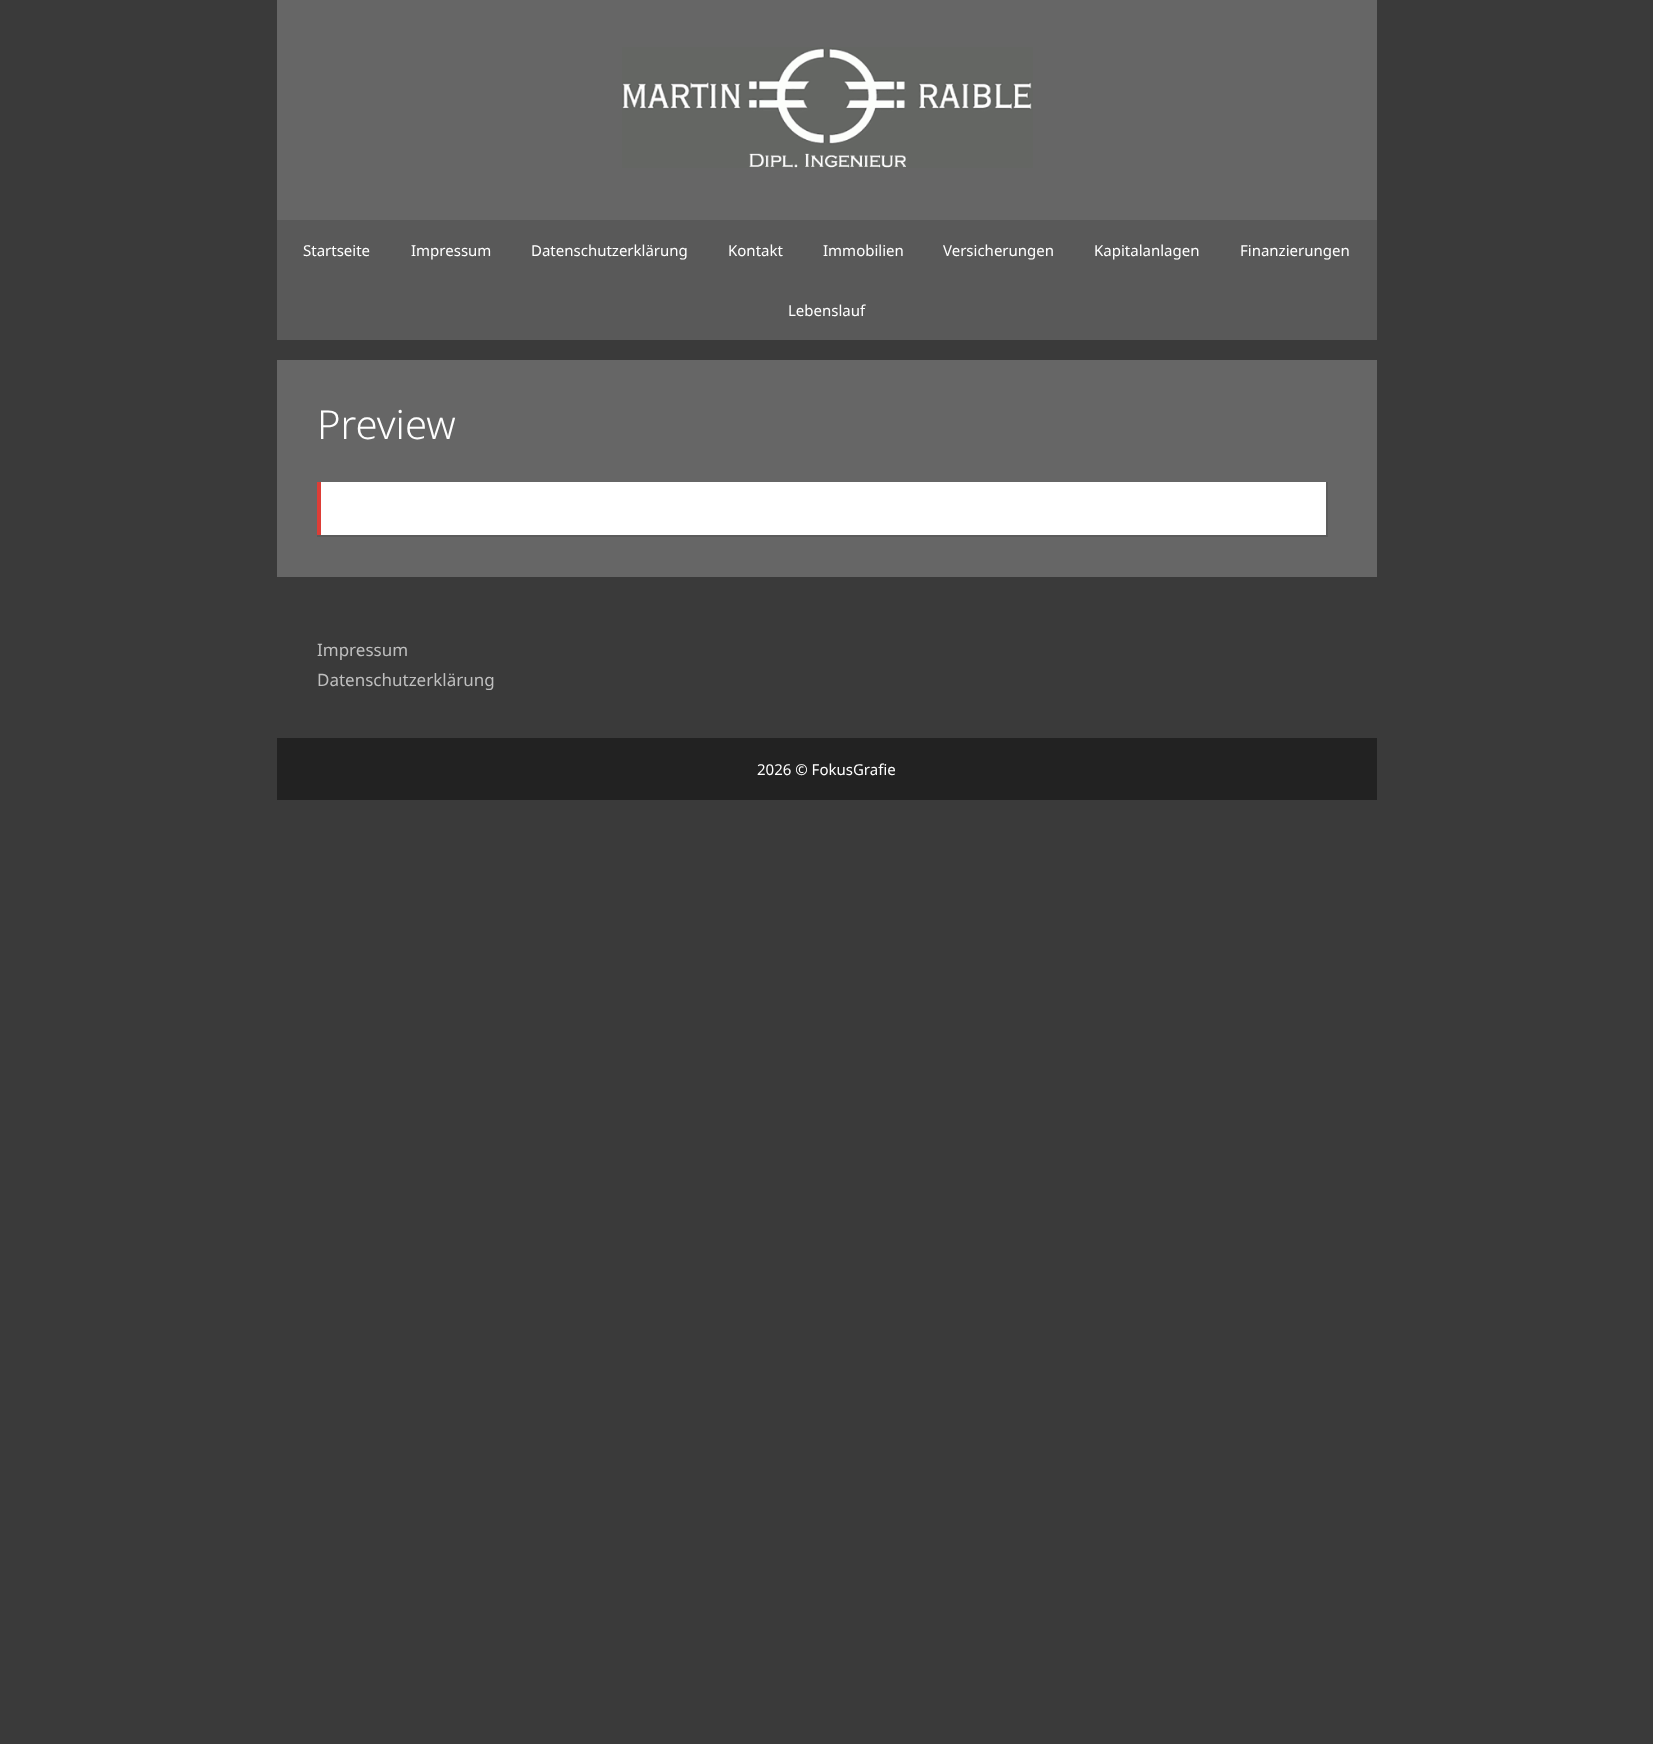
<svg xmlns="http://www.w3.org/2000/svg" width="1653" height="1744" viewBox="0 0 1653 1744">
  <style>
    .t1 { font: 15px Noto Sans; fill: #fff; }
    .t2 { font: 300 40px Noto Sans; fill: #fff; }
    .t3 { font: 17px Noto Sans; fill: #bfbfbf; }
  </style>
  <rect width="100%" height="100%" fill="#3a3a3a"/>
  <rect x="277" y="0" width="1100" height="220" fill="#666"/>
  <image x="622" y="47" width="411" height="121" href="images/1.png"/>
  <rect x="277" y="220" width="1100" height="120" fill="#595959"/>
  <text x="303" y="256" class="t1">Startseite</text>
  <text x="411" y="256" class="t1">Impressum</text>
  <text x="531" y="256" class="t1">Datenschutzerklärung</text>
  <text x="728" y="256" class="t1">Kontakt</text>
  <text x="823" y="256" class="t1">Immobilien</text>
  <text x="943" y="256" class="t1">Versicherungen</text>
  <text x="1094" y="256" class="t1">Kapitalanlagen</text>
  <text x="1240" y="256" class="t1">Finanzierungen</text>
  <text x="788" y="316" class="t1">Lebenslauf</text>
  <rect x="277" y="360" width="1100" height="217" fill="#666"/>
  <text x="317" y="439" class="t2">Preview</text>
  <rect x="317" y="482" width="1011" height="55" fill="#0000001a" filter="blur(0.5px)"/>
  <rect x="321" y="482" width="1005" height="53" fill="#fff"/>
  <rect x="317" y="482" width="4" height="53" fill="#dd3d36"/>
  <text x="317" y="656" class="t3">Impressum</text>
  <text x="317" y="686" class="t3">Datenschutzerklärung</text>
  <rect x="277" y="738" width="1100" height="62" fill="#222"/>
  <text x="757" y="775" class="t1">2026 © FokusGrafie</text>
</svg>
